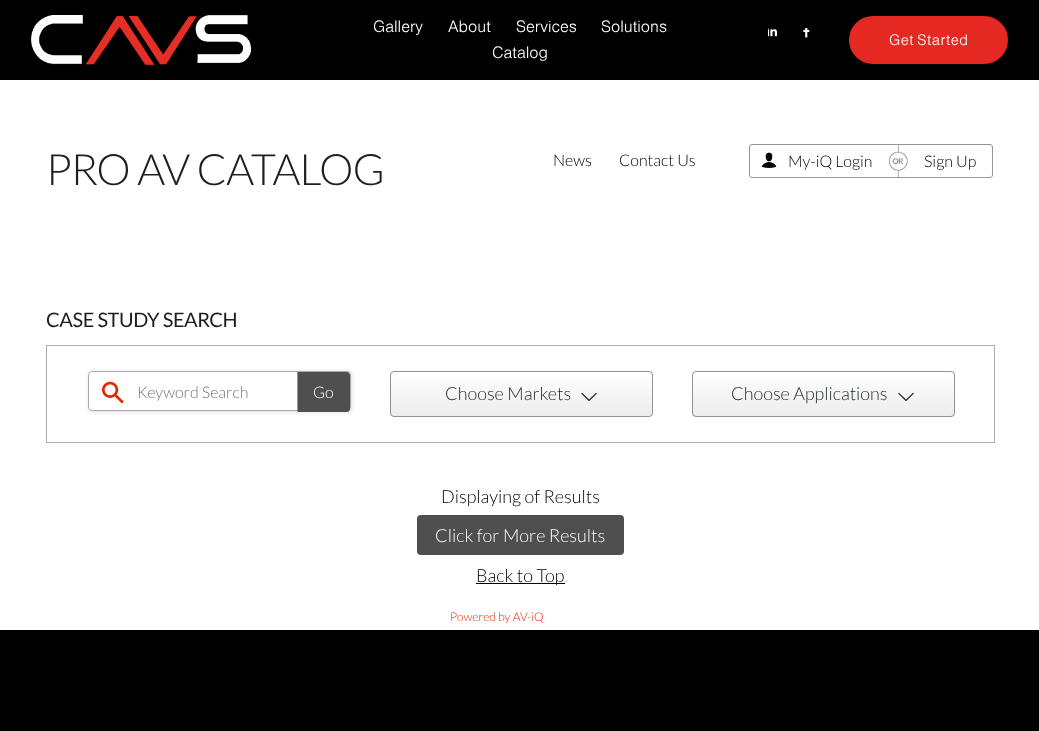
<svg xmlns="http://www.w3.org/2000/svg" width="1039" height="731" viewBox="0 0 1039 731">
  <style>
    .t1 { font: 300 16px Almarai; fill: #fff; }
    .t2 { font: 300 14.75px Almarai; letter-spacing: 0.5px; fill: #fff; }
    .t3 { font: 300 43.25px Lato; letter-spacing: -0.9px; fill: #1e1e1e; }
    .t4 { font: 300 16px Lato; fill: #000; }
    .t5 { font: 20px Lato; letter-spacing: -0.4px; fill: #1e1e1e; }
    .t6 { font: 300 16px Lato; fill: #757575; }
    .t7 { font: 300 16px Lato; fill: #fff; }
    .t8 { font: 300 18px Lato; fill: #212c2e; }
    .t9 { font: 300 18px Lato; fill: #000; }
    .t10 { font: 300 18px Lato; fill: #fff; }
    .t11 { font: 300 12px Lato; fill: #e12800; }
  </style>
  <defs>
    <clipPath id="clip1"><path d="M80 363H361V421H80ZM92 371H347C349 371 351 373 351 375V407C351 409 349 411 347 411H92C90 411 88 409 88 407V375C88 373 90 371 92 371Z" clip-rule="evenodd"/></clipPath>
    <clipPath id="clip2"><rect x="390" y="371" width="263" height="46" rx="4"/></clipPath>
    <linearGradient id="g1" gradientUnits="userSpaceOnUse" x1="522" y1="372" x2="522" y2="416"><stop offset="0" stop-color="#fff"/><stop offset="1" stop-color="#ececec"/></linearGradient>
    <clipPath id="clip3"><rect x="692" y="371" width="263" height="46" rx="4"/></clipPath>
    <linearGradient id="g2" gradientUnits="userSpaceOnUse" x1="824" y1="372" x2="824" y2="416"><stop offset="0" stop-color="#fff"/><stop offset="1" stop-color="#ececec"/></linearGradient>
  </defs>
  <rect width="100%" height="100%" fill="#000"/>
  <image x="31" y="15" width="220" height="51" href="images/1.png"/>
  <text x="373" y="32" class="t1">Gallery</text>
  <text x="448" y="32" class="t1">About</text>
  <text x="516" y="32" class="t1">Services</text>
  <text x="601" y="32" class="t1">Solutions</text>
  <text x="492" y="58" class="t1">Catalog</text>
  <image x="768" y="28" width="9" height="9" href="images/2.png"/>
  <image x="803" y="28" width="7" height="10" href="images/3.png"/>
  <rect x="849" y="16" width="159" height="48" rx="24" fill="#e52922"/>
  <text x="889" y="45" class="t2">Get Started</text>
  <rect x="0" y="80" width="1039" height="550" fill="#fff"/>
  <text x="46" y="185" class="t3">PRO AV CATALOG</text>
  <text x="553" y="166" class="t4">News</text>
  <text x="619" y="166" class="t4">Contact Us</text>
  <rect x="749.5" y="144.5" width="243" height="33" rx="2.5" fill="none" stroke="#969696"/>
  <image x="761" y="152" width="16" height="16" href="images/4.png"/>
  <text x="788" y="167" class="t4">My-iQ Login</text>
  <image x="889" y="145" width="19" height="32" href="images/5.png"/>
  <text x="924" y="167" class="t4">Sign Up</text>
  <text x="46" y="327" class="t5">CASE STUDY SEARCH</text>
  <rect x="46.5" y="345.5" width="948" height="97" fill="none" stroke="#acacac"/>
  <g clip-path="url(#clip1)">
    <rect x="89" y="372" width="263" height="40" rx="4" fill="#ddd" filter="blur(2.5px)"/>
  </g>
  <rect x="88.5" y="371.5" width="262" height="39" rx="3.5" fill="none" stroke="#aaa"/>
  <image x="102" y="381" width="22" height="23" href="images/6.png"/>
  <text x="137" y="398" class="t6">Keyword Search</text>
  <path d="M297 372H347C348.5 372 350 373.5 350 375V409C350 410.5 348.5 412 347 412H297Z" fill="#4f4f4f"/>
  <rect x="297" y="372" width="1" height="40" fill="#959595"/>
  <text x="313" y="398" class="t7">Go</text>
  <g clip-path="url(#clip2)">
    <rect x="390" y="372" width="263" height="44" fill="url(#g1)"/>
  </g>
  <rect x="390.5" y="371.5" width="262" height="45" rx="3.5" fill="none" stroke="#919191"/>
  <text x="445" y="400" class="t8">Choose Markets</text>
  <image x="581" y="392" width="16" height="9" href="images/7.png"/>
  <g clip-path="url(#clip3)">
    <rect x="692" y="372" width="263" height="44" fill="url(#g2)"/>
  </g>
  <rect x="692.5" y="371.5" width="262" height="45" rx="3.5" fill="none" stroke="#919191"/>
  <text x="731" y="400" class="t8">Choose Applications</text>
  <image x="898" y="392" width="16" height="9" href="images/7.png"/>
  <text x="441" y="503" class="t9">Displaying of Results</text>
  <rect x="417" y="515" width="207" height="40" rx="4" fill="#4f4f4f"/>
  <text x="435" y="542" class="t10">Click for More Results</text>
  <rect x="476" y="583" width="89" height="1" fill="#000"/>
  <text x="476" y="582" class="t9">Back to Top</text>
  <text x="450" y="621" class="t11">Powered by AV-iQ</text>
</svg>
